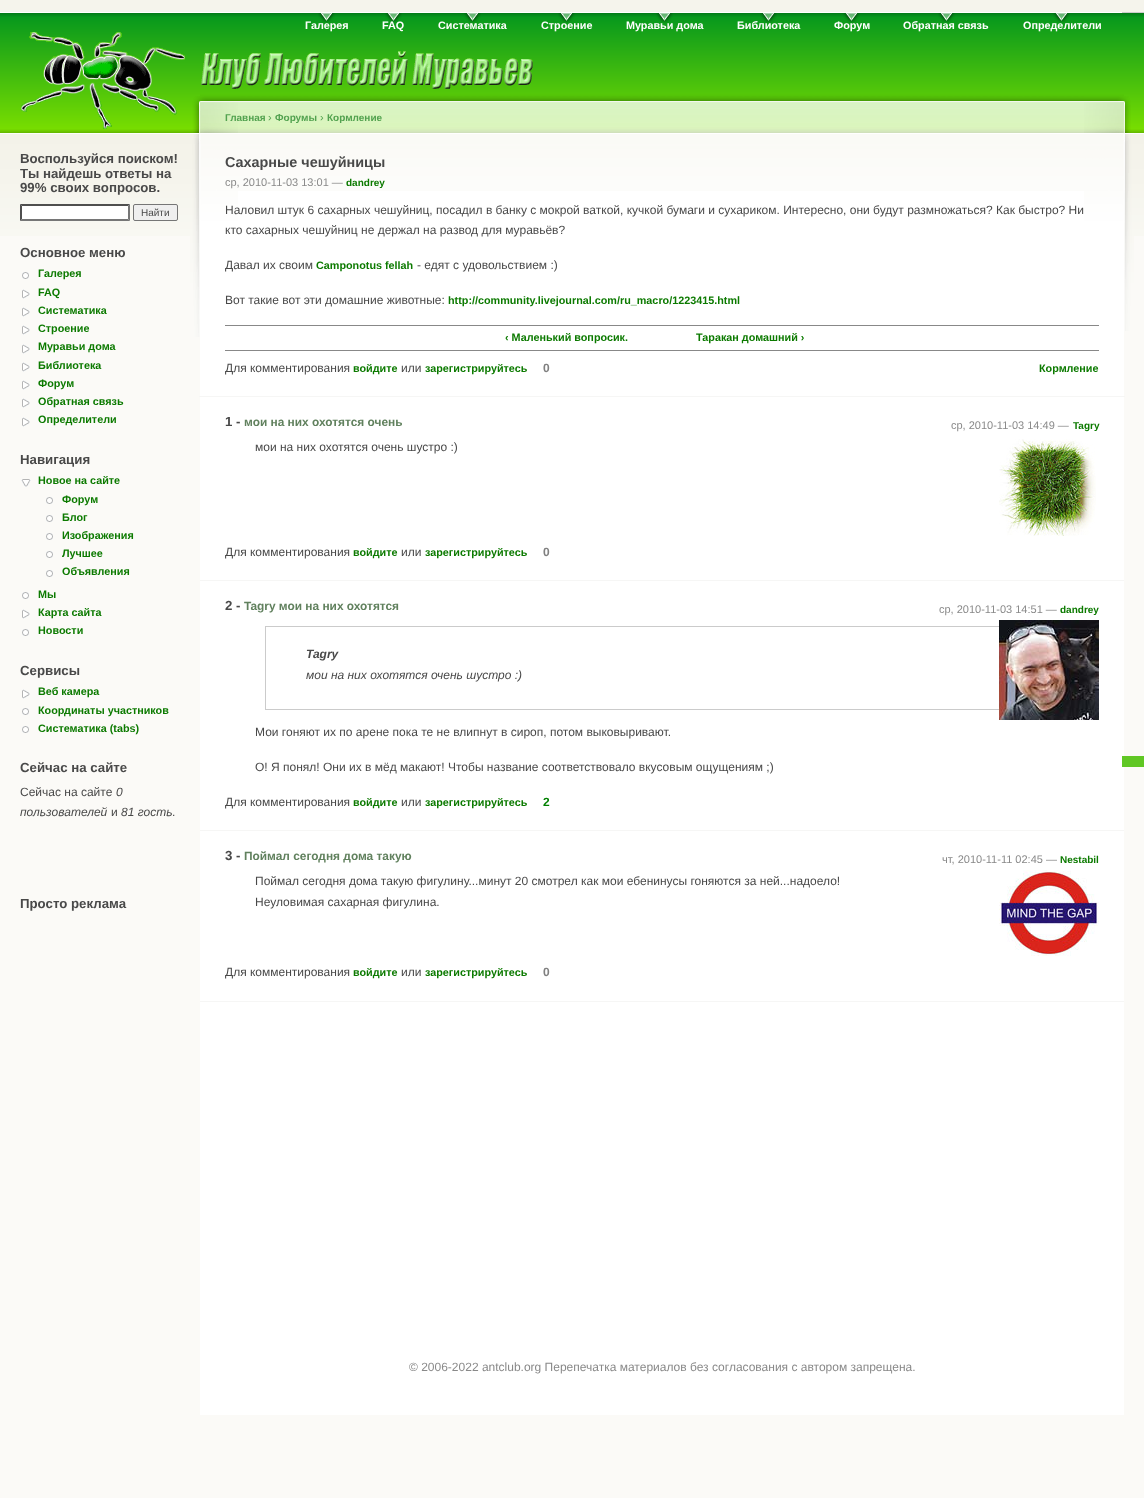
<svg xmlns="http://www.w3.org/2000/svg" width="1144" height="1498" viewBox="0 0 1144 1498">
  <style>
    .t1 { font: bold 10.8px Liberation Sans; fill: #fff; }
    .t2 { font: bold 13.25px Liberation Sans; fill: #494949; }
    .t3 { font: 10px Liberation Sans; fill: #494949; }
    .t4 { font: bold 10.8px Liberation Sans; fill: #0c7a00; }
    .t5 { font: 12px Liberation Sans; fill: #494949; }
    .t6 { font: italic 12px Liberation Sans; fill: #494949; }
    .t7 { font: bold 10px Liberation Sans; fill: #52a24f; }
    .t8 { font: 11px Liberation Sans; fill: #52a24f; }
    .t9 { font: bold 14.4px Liberation Sans; fill: #494949; }
    .t10 { font: 11px Liberation Sans; fill: #898989; }
    .t11 { font: bold 10px Liberation Sans; fill: #0c7a00; }
    .t12 { font: bold 12px Liberation Sans; fill: #808080; }
    .t13 { font: bold 11.9px Liberation Sans; fill: #61815e; }
    .t14 { font: italic bold 12px Liberation Sans; fill: #494949; }
    .t15 { font: bold 12px Liberation Sans; fill: #008000; }
    .t16 { font: 12px Liberation Sans; fill: #898989; }
  </style>
  <rect width="100%" height="100%" fill="#fbfaf7"/>
  <rect x="0" y="0" width="1144" height="12" fill="#f5f4ec"/>
  <image x="0" y="12" width="1144" height="224" href="images/1.png"/>
  <image x="318" y="13" width="17" height="10" href="images/2.png"/>
  <text x="305" y="29" class="t1">Галерея</text>
  <image x="385" y="13" width="17" height="10" href="images/2.png"/>
  <text x="382" y="29" class="t1">FAQ</text>
  <image x="464" y="13" width="17" height="10" href="images/2.png"/>
  <text x="438" y="29" class="t1">Систематика</text>
  <image x="558" y="13" width="17" height="10" href="images/2.png"/>
  <text x="541" y="29" class="t1">Строение</text>
  <image x="656" y="13" width="17" height="10" href="images/2.png"/>
  <text x="626" y="29" class="t1">Муравьи дома</text>
  <image x="760" y="13" width="17" height="10" href="images/2.png"/>
  <text x="737" y="29" class="t1">Библиотека</text>
  <image x="843" y="13" width="17" height="10" href="images/2.png"/>
  <text x="834" y="29" class="t1">Форум</text>
  <image x="938" y="13" width="17" height="10" href="images/2.png"/>
  <text x="903" y="29" class="t1">Обратная связь</text>
  <image x="1053" y="13" width="17" height="10" href="images/2.png"/>
  <text x="1023" y="29" class="t1">Определители</text>
  <image x="200" y="92" width="924" height="99" href="images/7.png"/>
  <rect x="200" y="191" width="924" height="1224" fill="#fff"/>
  <image x="190" y="96" width="48" height="241" href="images/9.png"/>
  <image x="21" y="32" width="512" height="97" href="images/3.png"/>
  <text x="20" y="163" class="t2">Воспользуйся поиском!</text>
  <text x="20" y="178" class="t2">Ты найдешь ответы на</text>
  <text x="20" y="192" class="t2">99% своих вопросов.</text>
  <rect x="20" y="204" width="110" height="17" fill="#fff"/>
  <path d="M20 204H130L128 206H22Z" fill="#4f4f4f"/>
  <path d="M130 204V221L128 219V206Z" fill="#767676"/>
  <path d="M130 221H20L22 219H128Z" fill="#767676"/>
  <path d="M20 221V204L22 206V219Z" fill="#4f4f4f"/>
  <rect x="133.5" y="204.5" width="44" height="16" rx="1.5" fill="#efefef" stroke="#767676"/>
  <text x="141" y="216" class="t3">Найти</text>
  <text x="20" y="257" class="t2">Основное меню</text>
  <image x="22" y="272" width="7" height="7" href="images/4.png"/>
  <text x="38" y="277" class="t4">Галерея</text>
  <image x="22" y="289" width="8" height="10" href="images/5.png"/>
  <text x="38" y="296" class="t4">FAQ</text>
  <image x="22" y="307" width="8" height="10" href="images/5.png"/>
  <text x="38" y="314" class="t4">Систематика</text>
  <image x="22" y="325" width="8" height="10" href="images/5.png"/>
  <text x="38" y="332" class="t4">Строение</text>
  <image x="22" y="344" width="8" height="10" href="images/5.png"/>
  <text x="38" y="350" class="t4">Муравьи дома</text>
  <image x="22" y="362" width="8" height="10" href="images/5.png"/>
  <text x="38" y="369" class="t4">Библиотека</text>
  <image x="22" y="380" width="8" height="10" href="images/5.png"/>
  <text x="38" y="387" class="t4">Форум</text>
  <image x="22" y="398" width="8" height="10" href="images/5.png"/>
  <text x="38" y="405" class="t4">Обратная связь</text>
  <image x="22" y="417" width="8" height="10" href="images/5.png"/>
  <text x="38" y="423" class="t4">Определители</text>
  <text x="20" y="464" class="t2">Навигация</text>
  <image x="21" y="479" width="10" height="8" href="images/6.png"/>
  <text x="38" y="484" class="t4">Новое на сайте</text>
  <image x="46" y="497" width="7" height="7" href="images/4.png"/>
  <text x="62" y="503" class="t4">Форум</text>
  <image x="46" y="515" width="7" height="7" href="images/4.png"/>
  <text x="62" y="521" class="t4">Блог</text>
  <image x="46" y="533" width="7" height="7" href="images/4.png"/>
  <text x="62" y="539" class="t4">Изображения</text>
  <image x="46" y="551" width="7" height="7" href="images/4.png"/>
  <text x="62" y="557" class="t4">Лучшее</text>
  <image x="46" y="570" width="7" height="7" href="images/4.png"/>
  <text x="62" y="575" class="t4">Объявления</text>
  <image x="22" y="592" width="7" height="7" href="images/4.png"/>
  <text x="38" y="598" class="t4">Мы</text>
  <image x="22" y="609" width="8" height="10" href="images/5.png"/>
  <text x="38" y="616" class="t4">Карта сайта</text>
  <image x="22" y="629" width="7" height="7" href="images/4.png"/>
  <text x="38" y="634" class="t4">Новости</text>
  <text x="20" y="675" class="t2">Сервисы</text>
  <image x="22" y="689" width="8" height="10" href="images/5.png"/>
  <text x="38" y="695" class="t4">Веб камера</text>
  <image x="22" y="708" width="7" height="7" href="images/4.png"/>
  <text x="38" y="714" class="t4">Координаты участников</text>
  <image x="22" y="726" width="7" height="7" href="images/4.png"/>
  <text x="38" y="732" class="t4">Систематика (tabs)</text>
  <text x="20" y="772" class="t2">Сейчас на сайте</text>
  <text x="20" y="796" class="t5">Сейчас на сайте</text>
  <text x="116" y="796" class="t6">0</text>
  <text x="20" y="816" class="t6">пользователей</text>
  <text x="111" y="816" class="t5">и</text>
  <text x="121" y="816" class="t6">81 гость</text>
  <text x="172" y="816" class="t5">.</text>
  <text x="20" y="908" class="t2">Просто реклама</text>
  <image x="1084" y="96" width="50" height="235" href="images/8.png"/>
  <text x="225" y="121" class="t7">Главная</text>
  <text x="268" y="121" class="t8">›</text>
  <text x="275" y="121" class="t7">Форумы</text>
  <text x="320" y="121" class="t8">›</text>
  <text x="327" y="121" class="t7">Кормление</text>
  <text x="225" y="167" class="t9">Сахарные чешуйницы</text>
  <rect x="199" y="396" width="926" height="1" fill="#f6f6f5"/>
  <text x="225" y="186" class="t10">ср, 2010-11-03 13:01 —</text>
  <text x="346" y="186" class="t11">dandrey</text>
  <text x="225" y="214" class="t5">Наловил штук 6 сахарных чешуйниц, посадил в банку с мокрой ваткой, кучкой бумаги и сухариком. Интересно, они будут размножаться? Как быстро? Ни</text>
  <text x="225" y="234" class="t5">кто сахарных чешуйниц не держал на развод для муравьёв?</text>
  <text x="225" y="269" class="t5">Давал их своим</text>
  <text x="316" y="269" class="t4">Camponotus fellah</text>
  <text x="417" y="269" class="t5">- едят с удовольствием :)</text>
  <text x="225" y="304" class="t5">Вот такие вот эти домашние животные:</text>
  <text x="448" y="304" class="t4">http://community.livejournal.com/ru_macro/1223415.html</text>
  <rect x="225" y="325" width="874" height="1" fill="#888"/>
  <rect x="225" y="350" width="874" height="1" fill="#888"/>
  <text x="505" y="341" class="t4">‹ Маленький вопросик.</text>
  <text x="696" y="341" class="t4">Таракан домашний ›</text>
  <text x="225" y="372" class="t5">Для комментирования</text>
  <text x="353" y="372" class="t4">войдите</text>
  <text x="401" y="372" class="t5">или</text>
  <text x="425" y="372" class="t4">зарегистрируйтесь</text>
  <text x="543" y="372" class="t12">0</text>
  <text x="1039" y="372" class="t4">Кормление</text>
  <rect x="200" y="1001" width="924" height="1" fill="#f6f6f5"/>
  <text x="225" y="426" class="t2">1 -</text>
  <text x="244" y="426" class="t13">мои на них охотятся очень</text>
  <text x="951" y="429" class="t10">ср, 2010-11-03 14:49 —</text>
  <text x="1073" y="429" class="t11">Tagry</text>
  <text x="255" y="451" class="t5">мои на них охотятся очень шустро :)</text>
  <image x="999" y="439" width="97" height="97" href="images/10.png"/>
  <text x="225" y="556" class="t5">Для комментирования</text>
  <text x="353" y="556" class="t4">войдите</text>
  <text x="401" y="556" class="t5">или</text>
  <text x="425" y="556" class="t4">зарегистрируйтесь</text>
  <text x="543" y="556" class="t12">0</text>
  <rect x="200" y="580" width="924" height="1" fill="#f6f6f5"/>
  <text x="225" y="610" class="t2">2 -</text>
  <text x="244" y="610" class="t13">Tagry мои на них охотятся</text>
  <text x="939" y="613" class="t10">ср, 2010-11-03 14:51 —</text>
  <text x="1060" y="613" class="t11">dandrey</text>
  <rect x="265.5" y="626.5" width="793" height="83" fill="none" stroke="#cbcbcb"/>
  <text x="306" y="658" class="t14">Tagry</text>
  <text x="306" y="679" class="t6">мои на них охотятся очень шустро :)</text>
  <text x="255" y="736" class="t5">Мои гоняют их по арене пока те не влипнут в сироп, потом выковыривают.</text>
  <text x="255" y="771" class="t5">О! Я понял! Они их в мёд макают! Чтобы название соответствовало вкусовым ощущениям ;)</text>
  <image x="999" y="620" width="100" height="100" href="images/11.png"/>
  <text x="225" y="806" class="t5">Для комментирования</text>
  <text x="353" y="806" class="t4">войдите</text>
  <text x="401" y="806" class="t5">или</text>
  <text x="425" y="806" class="t4">зарегистрируйтесь</text>
  <text x="543" y="806" class="t15">2</text>
  <rect x="200" y="830" width="924" height="1" fill="#f6f6f5"/>
  <text x="225" y="860" class="t2">3 -</text>
  <text x="244" y="860" class="t13">Поймал сегодня дома такую</text>
  <text x="942" y="863" class="t10">чт, 2010-11-11 02:45 —</text>
  <text x="1060" y="863" class="t11">Nestabil</text>
  <text x="255" y="885" class="t5">Поймал сегодня дома такую фигулину...минут 20 смотрел как мои ебенинусы гоняются за ней...надоело!</text>
  <text x="255" y="906" class="t5">Неуловимая сахарная фигулина.</text>
  <image x="999" y="870" width="100" height="86" href="images/12.png"/>
  <text x="225" y="976" class="t5">Для комментирования</text>
  <text x="353" y="976" class="t4">войдите</text>
  <text x="401" y="976" class="t5">или</text>
  <text x="425" y="976" class="t4">зарегистрируйтесь</text>
  <text x="543" y="976" class="t12">0</text>
  <rect x="1122" y="12" width="22" height="1" fill="#ccc"/>
  <rect x="1122" y="756" width="22" height="11" fill="#60c724"/>
  <text x="409" y="1371" class="t16">© 2006-2022 antclub.org Перепечатка материалов без согласования с автором запрещена.</text>
</svg>
